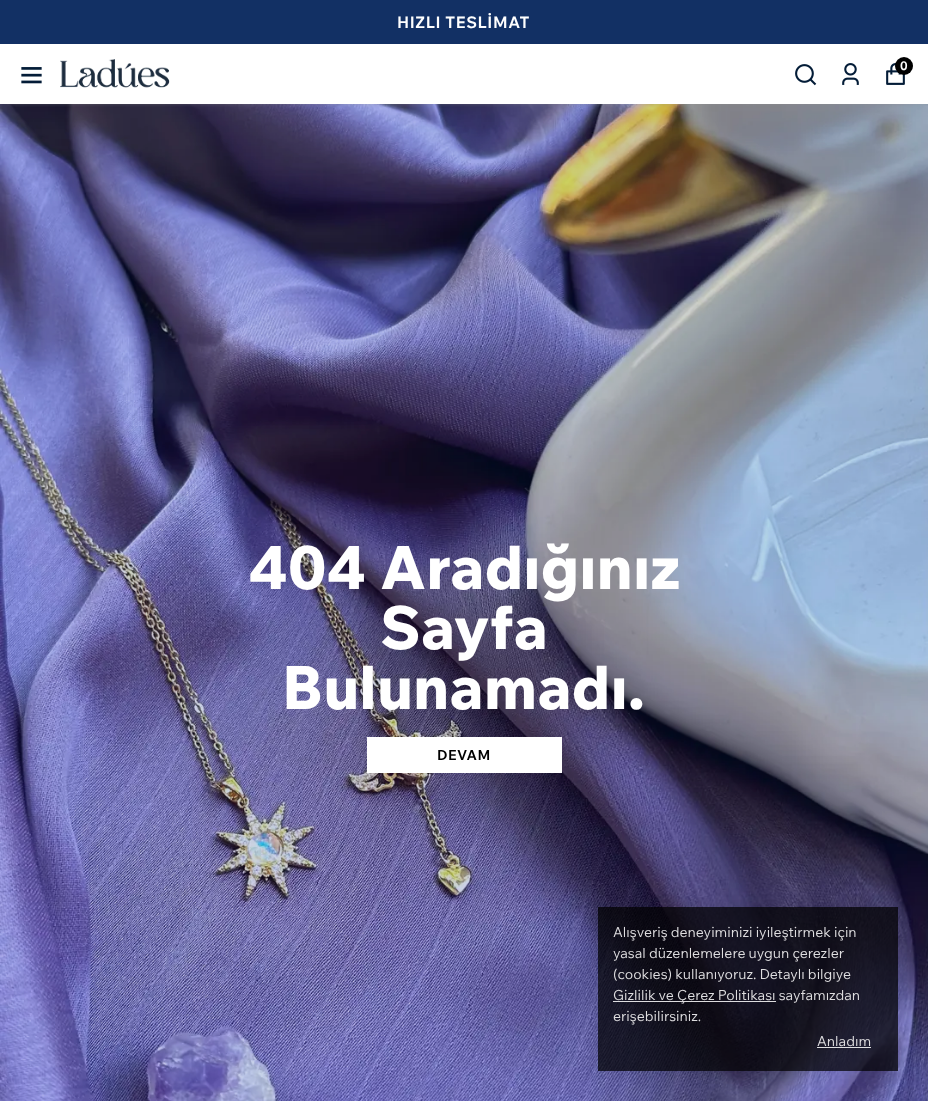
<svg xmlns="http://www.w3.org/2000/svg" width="928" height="1101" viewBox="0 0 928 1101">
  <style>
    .t1 { font: bold 16px Wix Madefor Text; letter-spacing: 0.6px; fill: #fff; }
    .t2 { font: bold 12px Wix Madefor Text; fill: #fff; }
    .t3 { font: 14px Wix Madefor Text; fill: #dedddf; }
    .t4 { font: 800 60px Wix Madefor Text; fill: #fff; }
    .t5 { font: bold 14px Wix Madefor Text; letter-spacing: 0.5px; fill: #000; }
  </style>
  <defs>
    <clipPath id="clip1"><rect x="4" y="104" width="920" height="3"/></clipPath>
    <clipPath id="clip2"><path d="M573 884H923V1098H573ZM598 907H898V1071H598Z" clip-rule="evenodd"/></clipPath>
  </defs>
  <rect width="100%" height="100%" fill="#fff"/>
  <rect x="0" y="0" width="928" height="44" fill="#123064"/>
  <text x="397" y="28" class="t1">HIZLI TESLİMAT</text>
  <image x="0" y="104" width="928" height="997" href="images/6.png"/>
  <g clip-path="url(#clip1)">
    <rect x="7" y="56" width="914" height="46" fill="#989898" filter="blur(2.5px)"/>
  </g>
  <image x="60" y="59" width="110" height="29" href="images/1.png"/>
  <image x="795" y="64" width="22" height="22" href="images/2.png"/>
  <image x="842" y="63" width="17" height="22" href="images/3.png"/>
  <image x="886" y="63" width="19" height="22" href="images/4.png"/>
  <circle cx="904" cy="66" r="9" fill="#000"/>
  <text x="900" y="70" class="t2">0</text>
  <image x="21" y="67" width="21" height="17" href="images/5.png"/>
  <g clip-path="url(#clip2)">
    <rect x="598" y="909" width="300" height="164" fill="#0000001a" filter="blur(8px)"/>
  </g>
  <rect x="598" y="907" width="300" height="164" fill="#000000ba"/>
  <text x="613" y="937" class="t3">Alışveriş deneyiminizi iyileştirmek için</text>
  <text x="613" y="958" class="t3">yasal düzenlemelere uygun çerezler</text>
  <text x="613" y="979" class="t3">(cookies) kullanıyoruz. Detaylı bilgiye</text>
  <rect x="613" y="1001" width="163" height="1" fill="#ffffffdb"/>
  <text x="613" y="1000" class="t3">Gizlilik ve Çerez Politikası sayfamızdan</text>
  <text x="613" y="1021" class="t3">erişebilirsiniz.</text>
  <text x="817" y="1046" class="t3">Anladım</text>
  <rect x="817" y="1047" width="54" height="1" fill="#ffffffdb"/>
  <text x="248" y="589" class="t4">404 Aradığınız</text>
  <text x="380" y="649" class="t4">Sayfa</text>
  <text x="282" y="709" class="t4">Bulunamadı.</text>
  <rect x="367" y="737" width="195" height="36" fill="#fff"/>
  <text x="437" y="760" class="t5">DEVAM</text>
</svg>
